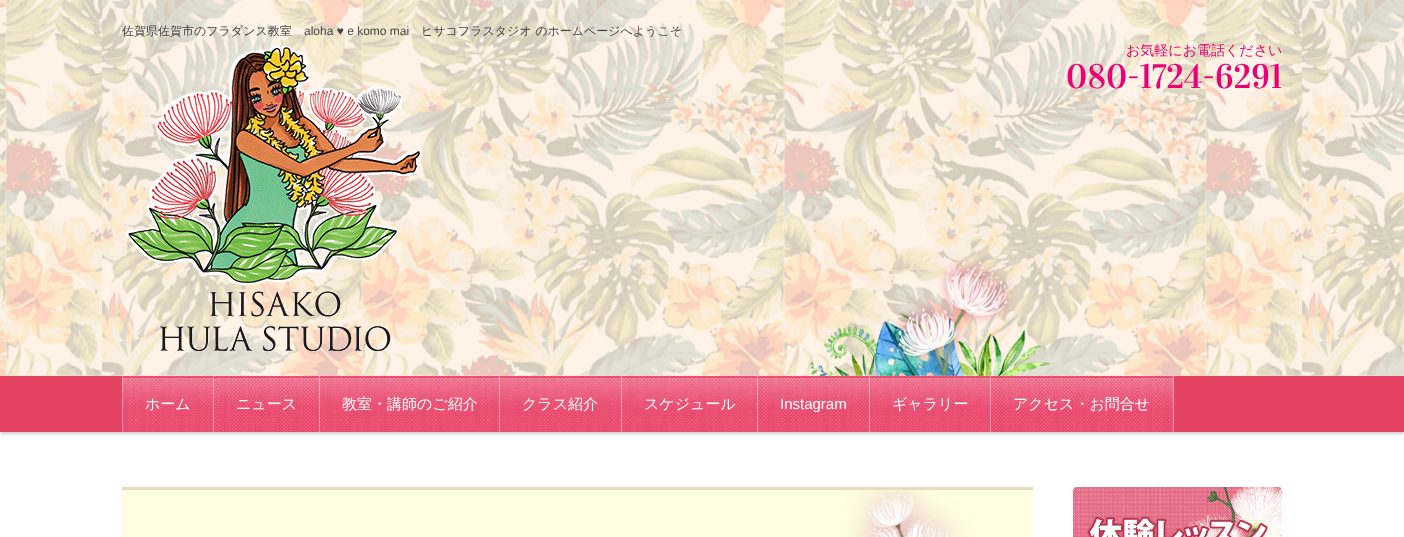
<svg xmlns="http://www.w3.org/2000/svg" width="1404" height="537" viewBox="0 0 1404 537">
  <style>
    .t1 { font: 500 12px WenQuanYi Zen Hei; fill: #444; }
    .t2 { font: 12px Liberation Sans; fill: #444; }
    .t3 { font: 500 14px WenQuanYi Zen Hei; fill: #ea0074; }
    .t4 { font: 34px Vidaloka; fill: #ea0074; }
    .t5 { font: 500 15px WenQuanYi Zen Hei; fill: #fff; }
    .t6 { font: 15px Liberation Sans; fill: #fff; }
  </style>
  <rect width="100%" height="100%" fill="#fff"/>
  <image x="0" y="0" width="1404" height="376" href="images/1.png"/>
  <text x="122" y="35" class="t1">佐賀県佐賀市のフラダンス教室</text>
  <text x="304" y="35" class="t2">aloha ♥ e komo mai</text>
  <text x="421" y="35" class="t1">ヒサコフラスタジオ のホームページへようこそ</text>
  <image x="126" y="46" width="296" height="305" href="images/2.png"/>
  <text x="1126" y="55" class="t3">お気軽にお電話ください</text>
  <text x="1066" y="88" class="t4">080-1724-6291</text>
  <rect x="0" y="378" width="1404" height="56" fill="#00000033" filter="blur(1.5px)"/>
  <rect x="0" y="376" width="1404" height="56" fill="#e44361"/>
  <image x="122" y="376" width="91" height="56" href="images/3.png"/>
  <rect x="122" y="376" width="1" height="56" fill="#ffffff66"/>
  <text x="145" y="409" class="t5">ホーム</text>
  <image x="213" y="376" width="106" height="56" href="images/4.png"/>
  <rect x="213" y="376" width="1" height="56" fill="#ffffff66"/>
  <text x="236" y="409" class="t5">ニュース</text>
  <image x="319" y="376" width="180" height="56" href="images/5.png"/>
  <rect x="319" y="376" width="1" height="56" fill="#ffffff66"/>
  <text x="342" y="409" class="t5">教室・講師のご紹介</text>
  <image x="499" y="376" width="122" height="56" href="images/6.png"/>
  <rect x="499" y="376" width="1" height="56" fill="#ffffff66"/>
  <text x="522" y="409" class="t5">クラス紹介</text>
  <image x="621" y="376" width="136" height="56" href="images/7.png"/>
  <rect x="621" y="376" width="1" height="56" fill="#ffffff66"/>
  <text x="644" y="409" class="t5">スケジュール</text>
  <image x="757" y="376" width="112" height="56" href="images/8.png"/>
  <rect x="757" y="376" width="1" height="56" fill="#ffffff66"/>
  <text x="780" y="409" class="t6">Instagram</text>
  <image x="869" y="376" width="121" height="56" href="images/9.png"/>
  <rect x="869" y="376" width="1" height="56" fill="#ffffff66"/>
  <text x="892" y="409" class="t5">ギャラリー</text>
  <image x="990" y="376" width="184" height="56" href="images/10.png"/>
  <rect x="1173" y="376" width="1" height="56" fill="#ffffff66"/>
  <rect x="990" y="376" width="1" height="56" fill="#ffffff66"/>
  <text x="1013" y="409" class="t5">アクセス・お問合せ</text>
  <image x="122" y="490" width="911" height="47" href="images/11.png"/>
  <rect x="122" y="487" width="911" height="3" fill="#eadabe"/>
  <image x="1073" y="487" width="209" height="50" href="images/12.png"/>
</svg>
